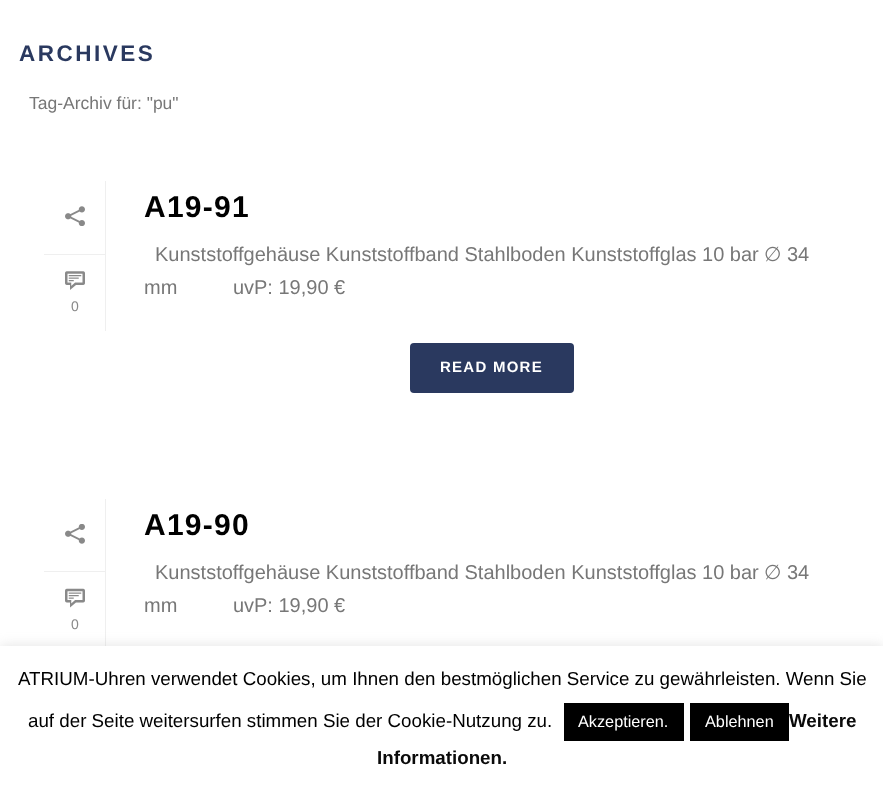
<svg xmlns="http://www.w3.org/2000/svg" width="883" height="789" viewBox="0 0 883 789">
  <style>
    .t1 { font: bold 22.5px Liberation Sans; letter-spacing: 2.5px; fill: #2a395f; }
    .t2 { font: 17.5px Liberation Sans; fill: #777; }
    .t3 { font: 14px Liberation Sans; fill: #898989; }
    .t4 { font: bold 30px Liberation Sans; letter-spacing: 1.25px; fill: #000; }
    .t5 { font: 20px Liberation Sans; fill: #777; }
    .t6 { font: 20px DejaVu Sans; fill: #777; }
    .t7 { font: bold 15px Liberation Sans; letter-spacing: 1.25px; fill: #fff; }
    .t8 { font: 18.75px Liberation Sans; fill: #000; }
    .t9 { font: 16.25px Liberation Sans; fill: #fff; }
    .t10 { font: bold 18.75px Liberation Sans; fill: #0a0a0a; }
  </style>
  <rect width="100%" height="100%" fill="#fff"/>
  <text x="19" y="61" class="t1">ARCHIVES</text>
  <text x="29" y="109" class="t2">Tag-Archiv für: "pu"</text>
  <rect x="105" y="181" width="1" height="150" fill="#efefef"/>
  <rect x="44" y="254" width="61" height="1" fill="#efefef"/>
  <image x="65" y="206" width="20" height="20" href="images/1.png"/>
  <image x="65" y="271" width="20" height="19" href="images/2.png"/>
  <text x="71" y="311" class="t3">0</text>
  <text x="144" y="217" class="t4">A19-91</text>
  <text x="155" y="261" class="t5">Kunststoffgehäuse Kunststoffband Stahlboden Kunststoffglas 10 bar</text>
  <text x="764" y="261" class="t6">∅</text>
  <text x="787" y="261" class="t5">34</text>
  <text x="144" y="294" class="t5" xml:space="preserve">mm          uvP: 19,90 €</text>
  <rect x="410" y="343" width="164" height="50" rx="4" fill="#2a395f"/>
  <text x="440" y="372" class="t7">READ MORE</text>
  <text x="144" y="535" class="t4">A19-90</text>
  <text x="155" y="579" class="t5">Kunststoffgehäuse Kunststoffband Stahlboden Kunststoffglas 10 bar</text>
  <text x="764" y="579" class="t6">∅</text>
  <text x="787" y="579" class="t5">34</text>
  <text x="144" y="612" class="t5" xml:space="preserve">mm          uvP: 19,90 €</text>
  <rect x="105" y="499" width="1" height="150" fill="#efefef"/>
  <rect x="44" y="571" width="61" height="1" fill="#efefef"/>
  <image x="65" y="524" width="20" height="20" href="images/3.png"/>
  <image x="65" y="588" width="20" height="20" href="images/4.png"/>
  <text x="71" y="629" class="t3">0</text>
  <rect x="0" y="645" width="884" height="144" fill="#acabab4d" filter="blur(6px)"/>
  <rect x="0" y="646" width="883" height="143" fill="#fff"/>
  <text x="18" y="685" class="t8">ATRIUM-Uhren verwendet Cookies, um Ihnen den bestmöglichen Service zu gewährleisten. Wenn Sie</text>
  <text x="28" y="727" class="t8">auf der Seite weitersurfen stimmen Sie der Cookie-Nutzung zu.</text>
  <rect x="564" y="703" width="120" height="38" fill="#000"/>
  <text x="578" y="727" class="t9">Akzeptieren.</text>
  <text x="789" y="727" class="t10">Weitere</text>
  <rect x="690" y="703" width="99" height="38" fill="#000"/>
  <text x="705" y="727" class="t9">Ablehnen</text>
  <text x="377" y="764" class="t10">Informationen.</text>
</svg>
